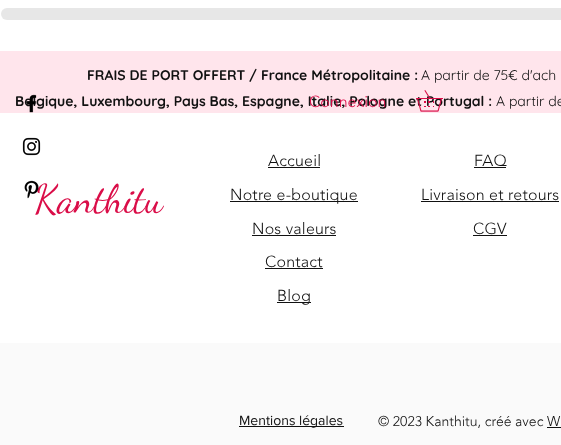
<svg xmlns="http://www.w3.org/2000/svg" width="561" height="445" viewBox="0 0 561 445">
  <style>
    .t1 { font: bold 14px Quicksand; fill: #111; }
    .t2 { font: 14px Quicksand; fill: #111; }
    .t3 { font: 40px Dancing Script; fill: #da0d48; }
    .t4 { font: 300 16px 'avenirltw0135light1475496'; letter-spacing: 0.2px; fill: #111; }
    .t5 { font: 14px 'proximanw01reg'; fill: #111; }
    .t6 { font: 300 14px 'avenirltw0135light1475496'; fill: #111; }
    .t7 { font: 300 16px 'avenirltw0135light1475496'; fill: #da0d48; }
  </style>
  <defs>
    <linearGradient id="g1" gradientUnits="userSpaceOnUse" x1="1" y1="14" x2="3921" y2="14"><stop offset="0.25" stop-color="#e7e7e7"/><stop offset="0.37" stop-color="#cfcfcf"/><stop offset="0.63" stop-color="#e7e7e7"/></linearGradient>
  </defs>
  <rect width="100%" height="100%" fill="#fff"/>
  <rect x="1" y="8" width="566" height="12" rx="6" fill="url(#g1)"/>
  <rect x="0" y="51" width="561" height="62" fill="#ffe5ec"/>
  <text x="87" y="80" class="t1">FRAIS DE PORT OFFERT / France Métropolitaine :</text>
  <text x="421" y="80" class="t2">A partir de 75€ d'ach</text>
  <text x="15" y="106" class="t1">Belgique, Luxembourg, Pays Bas, Espagne, Italie, Pologne et Portugal :</text>
  <text x="496" y="106" class="t2">A partir de</text>
  <text x="34" y="212" class="t3">Kanthitu</text>
  <text x="268" y="166" class="t4">Accueil</text>
  <rect x="268" y="167" width="52" height="1" fill="#111"/>
  <rect x="230" y="201" width="128" height="1" fill="#111"/>
  <text x="230" y="200" class="t4">Notre e-boutique</text>
  <text x="252" y="234" class="t4">Nos valeurs</text>
  <rect x="252" y="235" width="84" height="1" fill="#111"/>
  <text x="265" y="267" class="t4">Contact</text>
  <rect x="265" y="268" width="58" height="1" fill="#111"/>
  <rect x="277" y="302" width="34" height="1" fill="#111"/>
  <text x="277" y="301" class="t4">Blog</text>
  <text x="474" y="166" class="t4">FAQ</text>
  <rect x="474" y="167" width="32" height="1" fill="#111"/>
  <text x="421" y="200" class="t4">Livraison et retours</text>
  <rect x="421" y="201" width="138" height="1" fill="#111"/>
  <text x="473" y="234" class="t4">CGV</text>
  <rect x="473" y="235" width="34" height="1" fill="#111"/>
  <rect x="0" y="343" width="561" height="102" fill="#fafafa"/>
  <rect x="239" y="426" width="105" height="1" fill="#111"/>
  <text x="239" y="425" class="t5">Mentions légales</text>
  <text x="378" y="426" class="t6">© 2023 Kanthitu, créé avec W</text>
  <rect x="547" y="427" width="14" height="1" fill="#111"/>
  <image x="26" y="94" width="11" height="19" href="images/1.png"/>
  <image x="22" y="137" width="19" height="19" href="images/2.png"/>
  <image x="24" y="180" width="15" height="19" href="images/3.png"/>
  <text x="309" y="107" class="t7">Connexion</text>
  <image x="416" y="90" width="27" height="22" href="images/4.png"/>
</svg>
